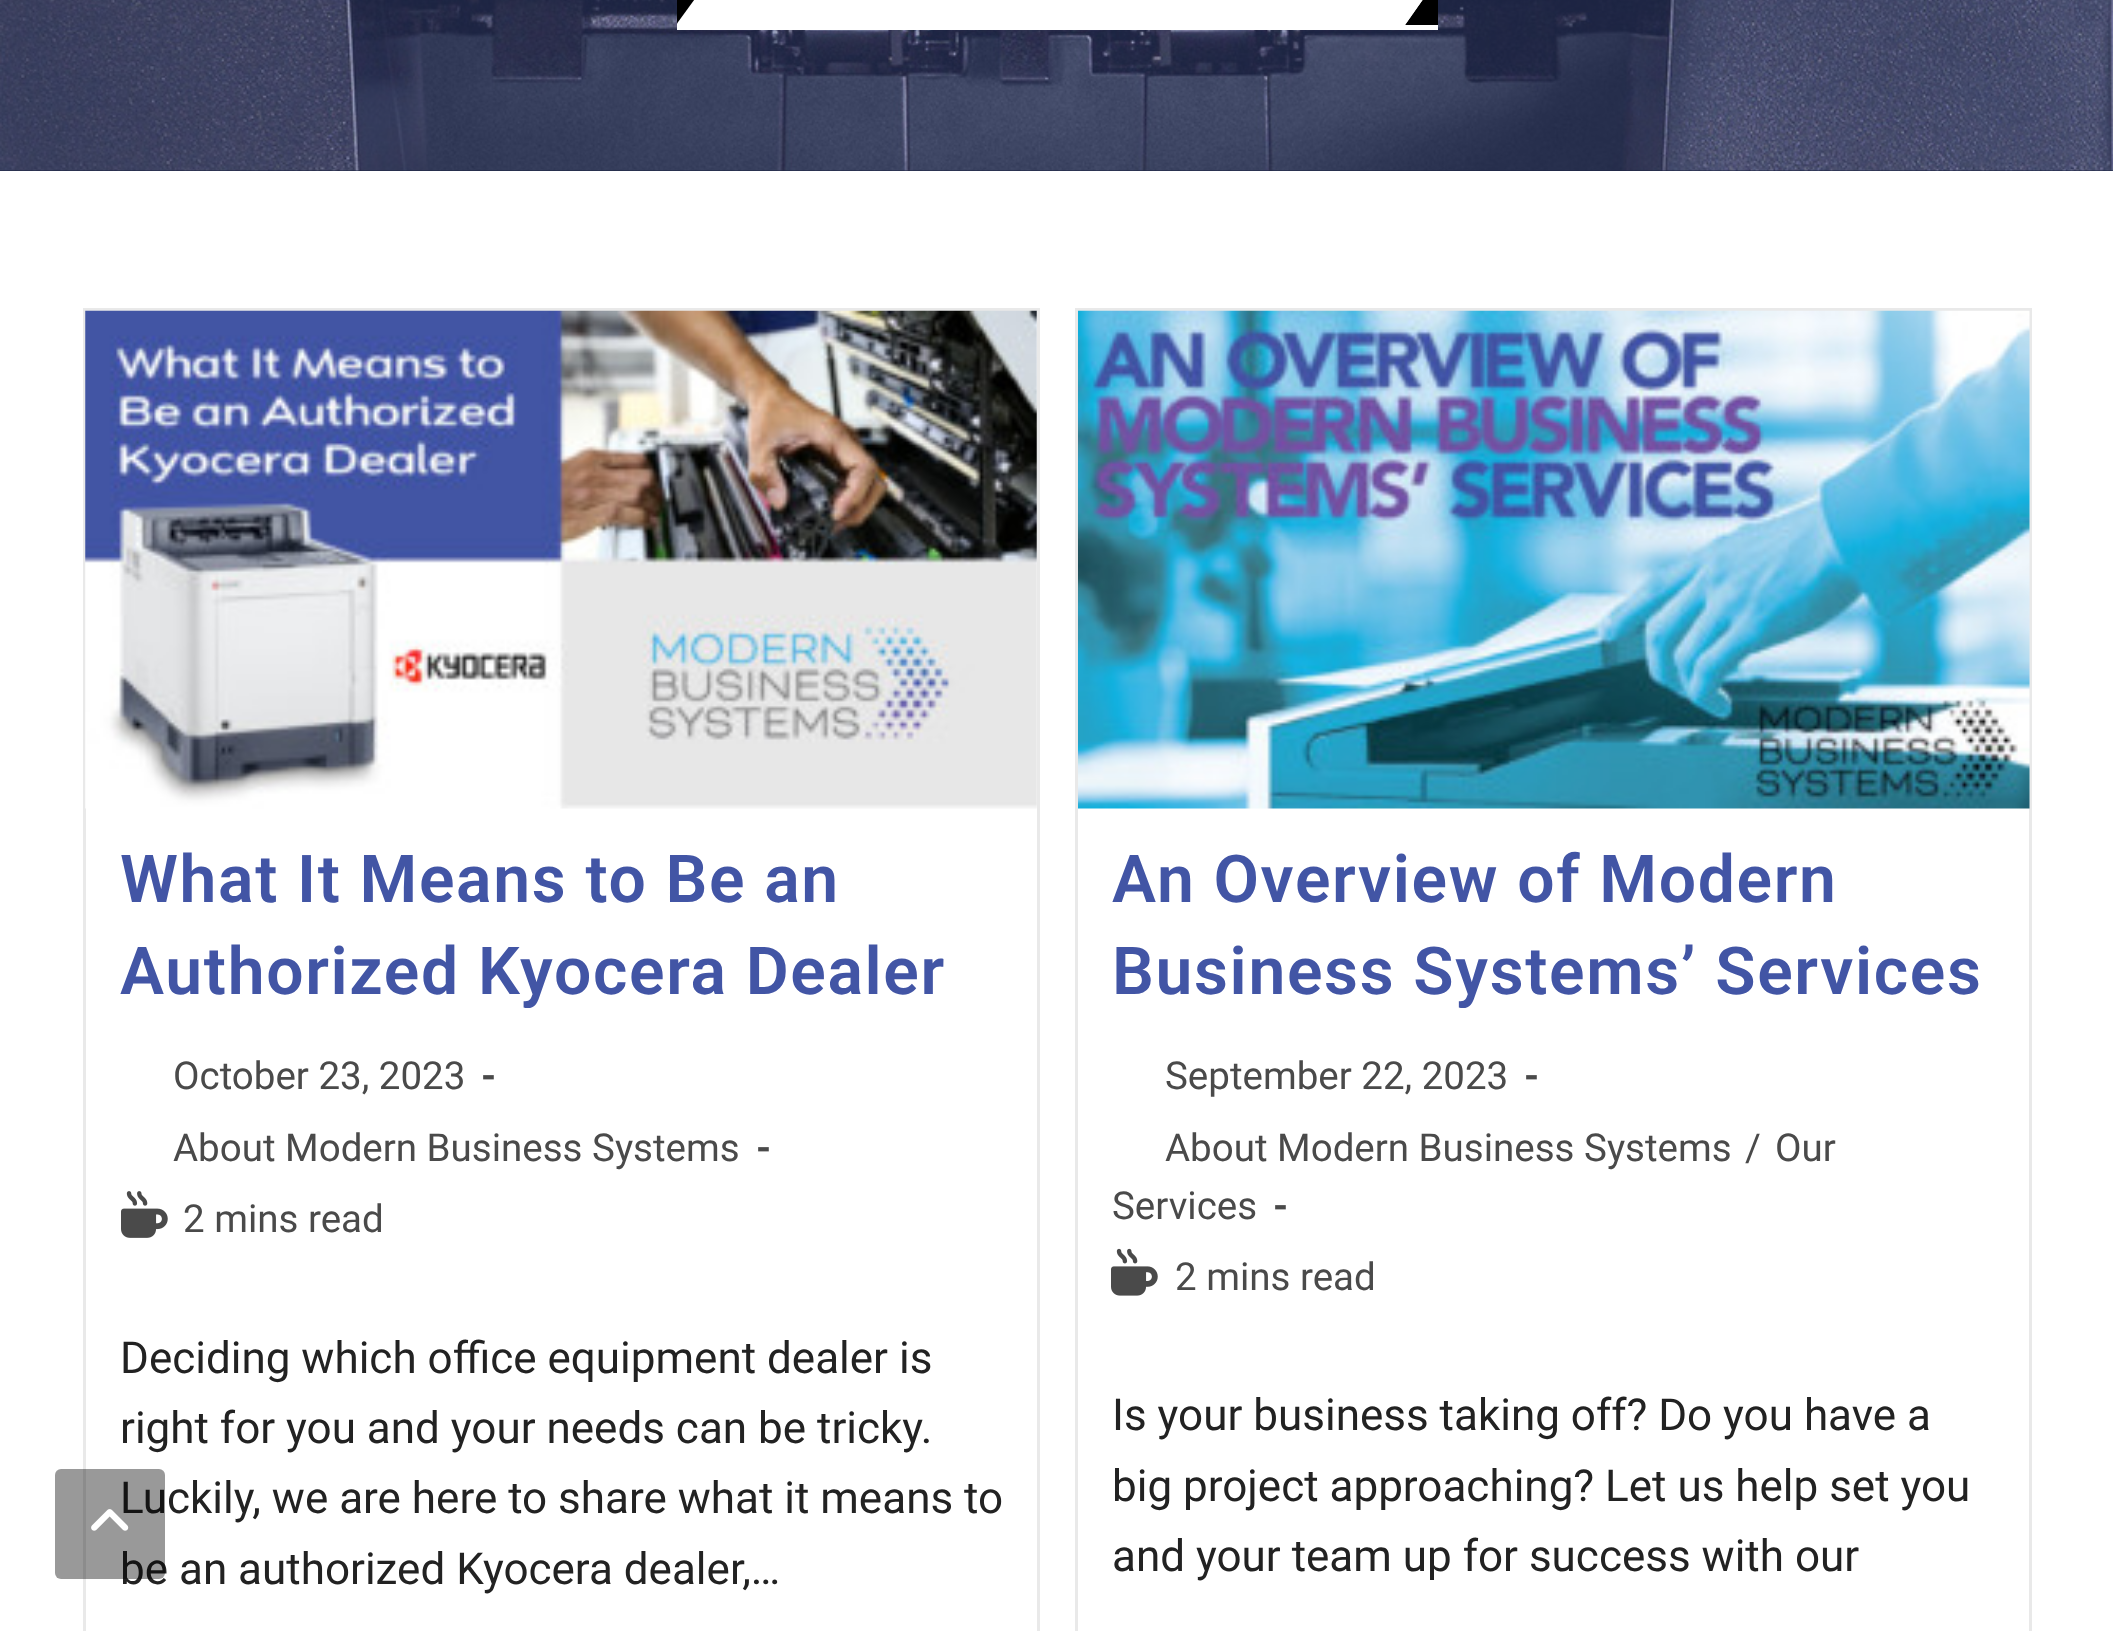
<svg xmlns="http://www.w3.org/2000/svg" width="2113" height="1631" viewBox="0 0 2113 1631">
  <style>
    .t1 { font: 44px Roboto; fill: #222; }
    .t2 { font: 600 66px Roboto; letter-spacing: 1.65px; fill: #4255a5; }
    .t3 { font: 38.5px Roboto; fill: #4a4a4a; }
    .t4 { font: bold 38.5px Roboto; fill: #4a4a4a; }
  </style>
  <defs>
    <clipPath id="clip1"><rect x="677" y="0" width="761" height="30"/></clipPath>
  </defs>
  <rect width="100%" height="100%" fill="#fff"/>
  <rect x="84.5" y="309.5" width="954" height="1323" fill="none" stroke="#e9e9e9" stroke-width="3"/>
  <text x="120" y="1513" class="t1">Luckily, we are here to share what it means to</text>
  <text x="120" y="1584" class="t1">be an authorized Kyocera dealer,…</text>
  <rect x="55" y="1469" width="110" height="110" rx="6" fill="#00000066"/>
  <image x="91" y="1509" width="38" height="22" href="images/1.png"/>
  <rect x="0" y="170" width="2113" height="1" fill="#000"/>
  <image x="0" y="0" width="2113" height="171" href="images/2.png"/>
  <rect x="0" y="0" width="2113" height="171" fill="#37488480"/>
  <rect x="677" y="0" width="761" height="30" fill="#fff"/>
  <g clip-path="url(#clip1)">
    <path d="M676 25V-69L710-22Z" fill="#000"/>
  </g>
  <path d="M1438 25H1405L1438-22Z" fill="#000"/>
  <path d="M1405 25V-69L1438-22Z" fill="#fff"/>
  <image x="85" y="310" width="952" height="499" href="images/3.png"/>
  <text x="120" y="902" class="t2">What It Means to Be an</text>
  <text x="120" y="994" class="t2">Authorized Kyocera Dealer</text>
  <text x="173" y="1089" class="t3">October 23, 2023</text>
  <text x="481" y="1089" class="t4">-</text>
  <text x="173" y="1161" class="t3">About Modern Business Systems</text>
  <text x="756" y="1161" class="t4">-</text>
  <image x="121" y="1191" width="47" height="47" href="images/4.png"/>
  <text x="183" y="1232" class="t3">2 mins read</text>
  <text x="120" y="1373" class="t1">Deciding which office equipment dealer is</text>
  <text x="120" y="1443" class="t1">right for you and your needs can be tricky.</text>
  <rect x="1076.5" y="309.5" width="954" height="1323" fill="none" stroke="#e9e9e9" stroke-width="3"/>
  <image x="1078" y="310" width="952" height="499" href="images/5.png"/>
  <text x="1112" y="902" class="t2">An Overview of Modern</text>
  <text x="1112" y="994" class="t2">Business Systems’ Services</text>
  <text x="1165" y="1089" class="t3">September 22, 2023</text>
  <text x="1524" y="1089" class="t4">-</text>
  <text x="1165" y="1161" class="t3">About Modern Business Systems</text>
  <text x="1745" y="1161" class="t3">/</text>
  <text x="1775" y="1161" class="t3">Our</text>
  <text x="1112" y="1219" class="t3">Services</text>
  <text x="1273" y="1219" class="t4">-</text>
  <image x="1111" y="1248" width="47" height="48" href="images/6.png"/>
  <text x="1175" y="1290" class="t3">2 mins read</text>
  <text x="1112" y="1430" class="t1">Is your business taking off? Do you have a</text>
  <text x="1112" y="1501" class="t1">big project approaching? Let us help set you</text>
  <text x="1112" y="1571" class="t1">and your team up for success with our</text>
</svg>
